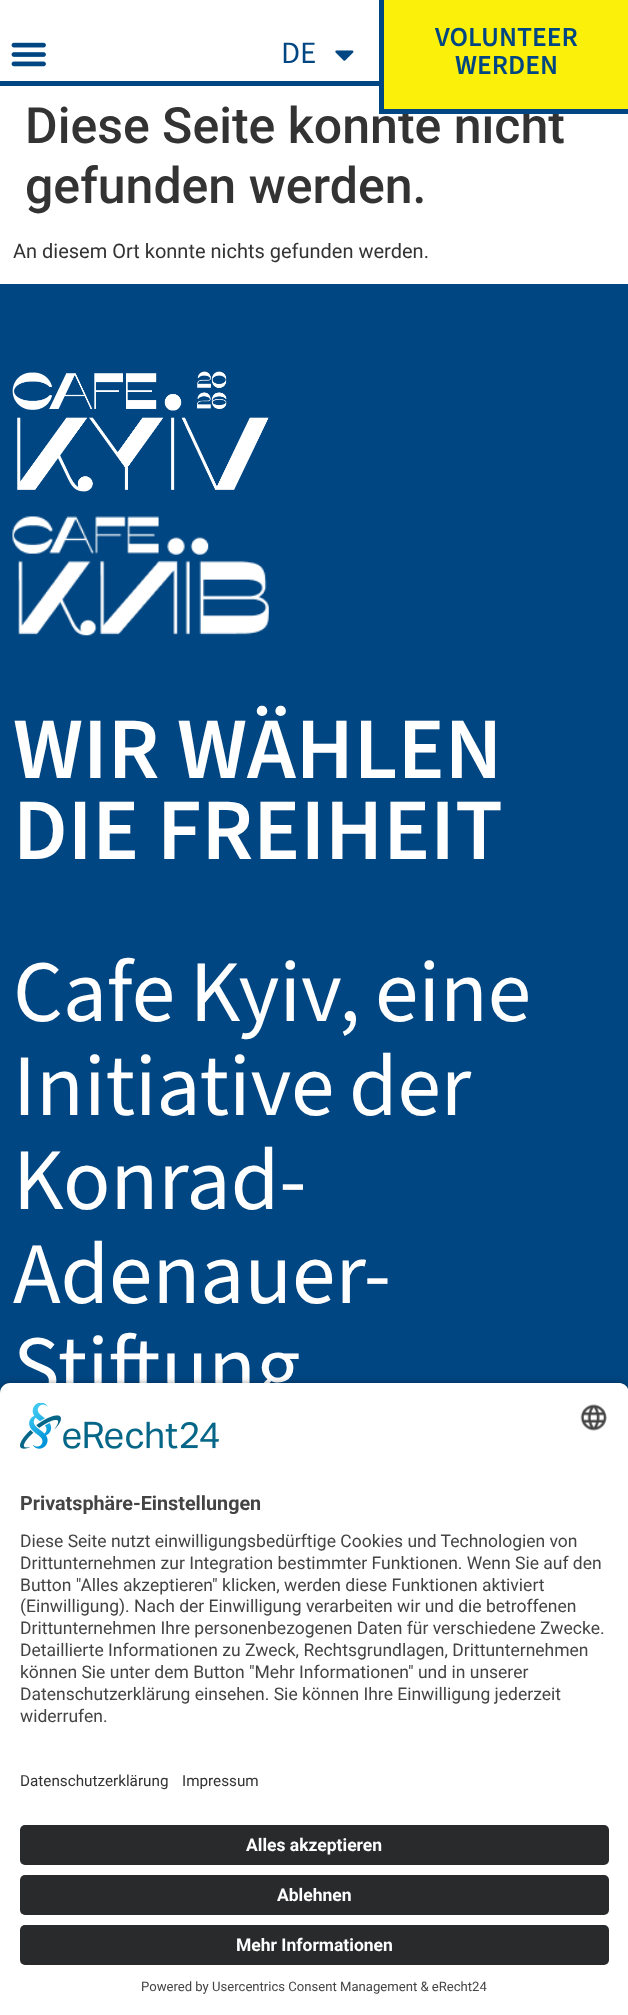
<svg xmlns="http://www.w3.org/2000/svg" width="628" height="2015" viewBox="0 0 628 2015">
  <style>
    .t1 { font: 31px 'Source Sans 3'; fill: #004682; }
    .t2 { font: 500 50px Roboto; fill: #333; }
    .t3 { font: 600 27.5px 'Source Sans 3'; fill: #004682; }
    .t4 { font: 20px Roboto; fill: #333; }
    .t5 { font: 600 87.5px 'Source Sans 3'; fill: #fff; }
    .t6 { font: 87.5px 'Source Sans 3'; fill: #fff; }
    .t7 { font: bold 19.75px Roboto; fill: #444; }
    .t8 { font: 17.5px Roboto; fill: #444; }
    .t9 { font: 15.25px Roboto; fill: #333; }
    .t10 { font: bold 17.5px Roboto; fill: #fff; }
    .t11 { font: 13.1px Roboto; fill: #444; }
  </style>
  <rect width="100%" height="100%" fill="#fff"/>
  <rect x="0" y="81" width="379" height="5" fill="#004682"/>
  <image x="11" y="42" width="35" height="25" href="images/1.png"/>
  <text x="281" y="63" class="t1">DE</text>
  <image x="335" y="50" width="19" height="11" href="images/2.png"/>
  <text x="25" y="143" class="t2">Diese Seite konnte nicht</text>
  <rect x="384" y="0" width="244" height="109" fill="#faf00a"/>
  <rect x="379" y="109" width="249" height="5" fill="#004682"/>
  <rect x="379" y="0" width="5" height="114" fill="#004682"/>
  <text x="435" y="46" class="t3">VOLUNTEER</text>
  <text x="455" y="74" class="t3">WERDEN</text>
  <text x="25" y="203" class="t2">gefunden werden.</text>
  <text x="13" y="258" class="t4">An diesem Ort konnte nichts gefunden werden.</text>
  <rect x="0" y="284" width="628" height="1109" fill="#004682"/>
  <image x="12" y="371" width="257" height="121" href="images/3.png"/>
  <image x="12" y="516" width="257" height="120" href="images/4.png"/>
  <text x="13" y="778" class="t5">WIR WÄHLEN</text>
  <text x="13" y="859" class="t5">DIE FREIHEIT</text>
  <text x="13" y="1021" word-spacing="-3" class="t6">Cafe Kyiv, eine</text>
  <text x="13" y="1115" word-spacing="-3" class="t6">Initiative der</text>
  <text x="13" y="1209" class="t6">Konrad-</text>
  <text x="13" y="1303" class="t6">Adenauer-</text>
  <text x="13" y="1396" class="t6">Stiftung</text>
  <rect x="0" y="1386" width="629" height="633" rx="10" fill="#000000cc" filter="blur(4.5px)"/>
  <path d="M10 1383H619C624.5 1383 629 1387.5 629 1393V1753H0V1393C0 1387.5 4.5 1383 10 1383Z" fill="#fff"/>
  <image x="20" y="1403" width="199" height="46" href="images/5.png"/>
  <image x="580" y="1404" width="27" height="27" href="images/6.png"/>
  <text x="20" y="1510" class="t7">Privatsphäre-Einstellungen</text>
  <text x="20" y="1547" class="t8">Diese Seite nutzt einwilligungsbedürftige Cookies und Technologien von</text>
  <text x="20" y="1569" class="t8">Drittunternehmen zur Integration bestimmter Funktionen. Wenn Sie auf den</text>
  <text x="20" y="1591" class="t8">Button "Alles akzeptieren" klicken, werden diese Funktionen aktiviert</text>
  <text x="20" y="1612" class="t8">(Einwilligung). Nach der Einwilligung verarbeiten wir und die betroffenen</text>
  <text x="20" y="1634" class="t8">Drittunternehmen Ihre personenbezogenen Daten für verschiedene Zwecke.</text>
  <text x="20" y="1656" class="t8">Detaillierte Informationen zu Zweck, Rechtsgrundlagen, Drittunternehmen</text>
  <text x="20" y="1678" class="t8">können Sie unter dem Button "Mehr Informationen" und in unserer</text>
  <text x="20" y="1700" class="t8">Datenschutzerklärung einsehen. Sie können Ihre Einwilligung jederzeit</text>
  <text x="20" y="1722" class="t8">widerrufen.</text>
  <rect x="0" y="1753" width="628" height="262" fill="#fff"/>
  <text x="20" y="1786" class="t9">Datenschutzerklärung</text>
  <text x="182" y="1786" class="t9">Impressum</text>
  <rect x="20" y="1825" width="589" height="40" rx="5" fill="#292a2b"/>
  <text x="246" y="1851" class="t10">Alles akzeptieren</text>
  <rect x="20" y="1875" width="589" height="40" rx="5" fill="#292a2b"/>
  <text x="277" y="1901" class="t10">Ablehnen</text>
  <rect x="20" y="1925" width="589" height="40" rx="5" fill="#292a2b"/>
  <text x="236" y="1951" class="t10">Mehr Informationen</text>
  <text x="141" y="1991" class="t11">Powered by Usercentrics Consent Management &amp; eRecht24</text>
</svg>
